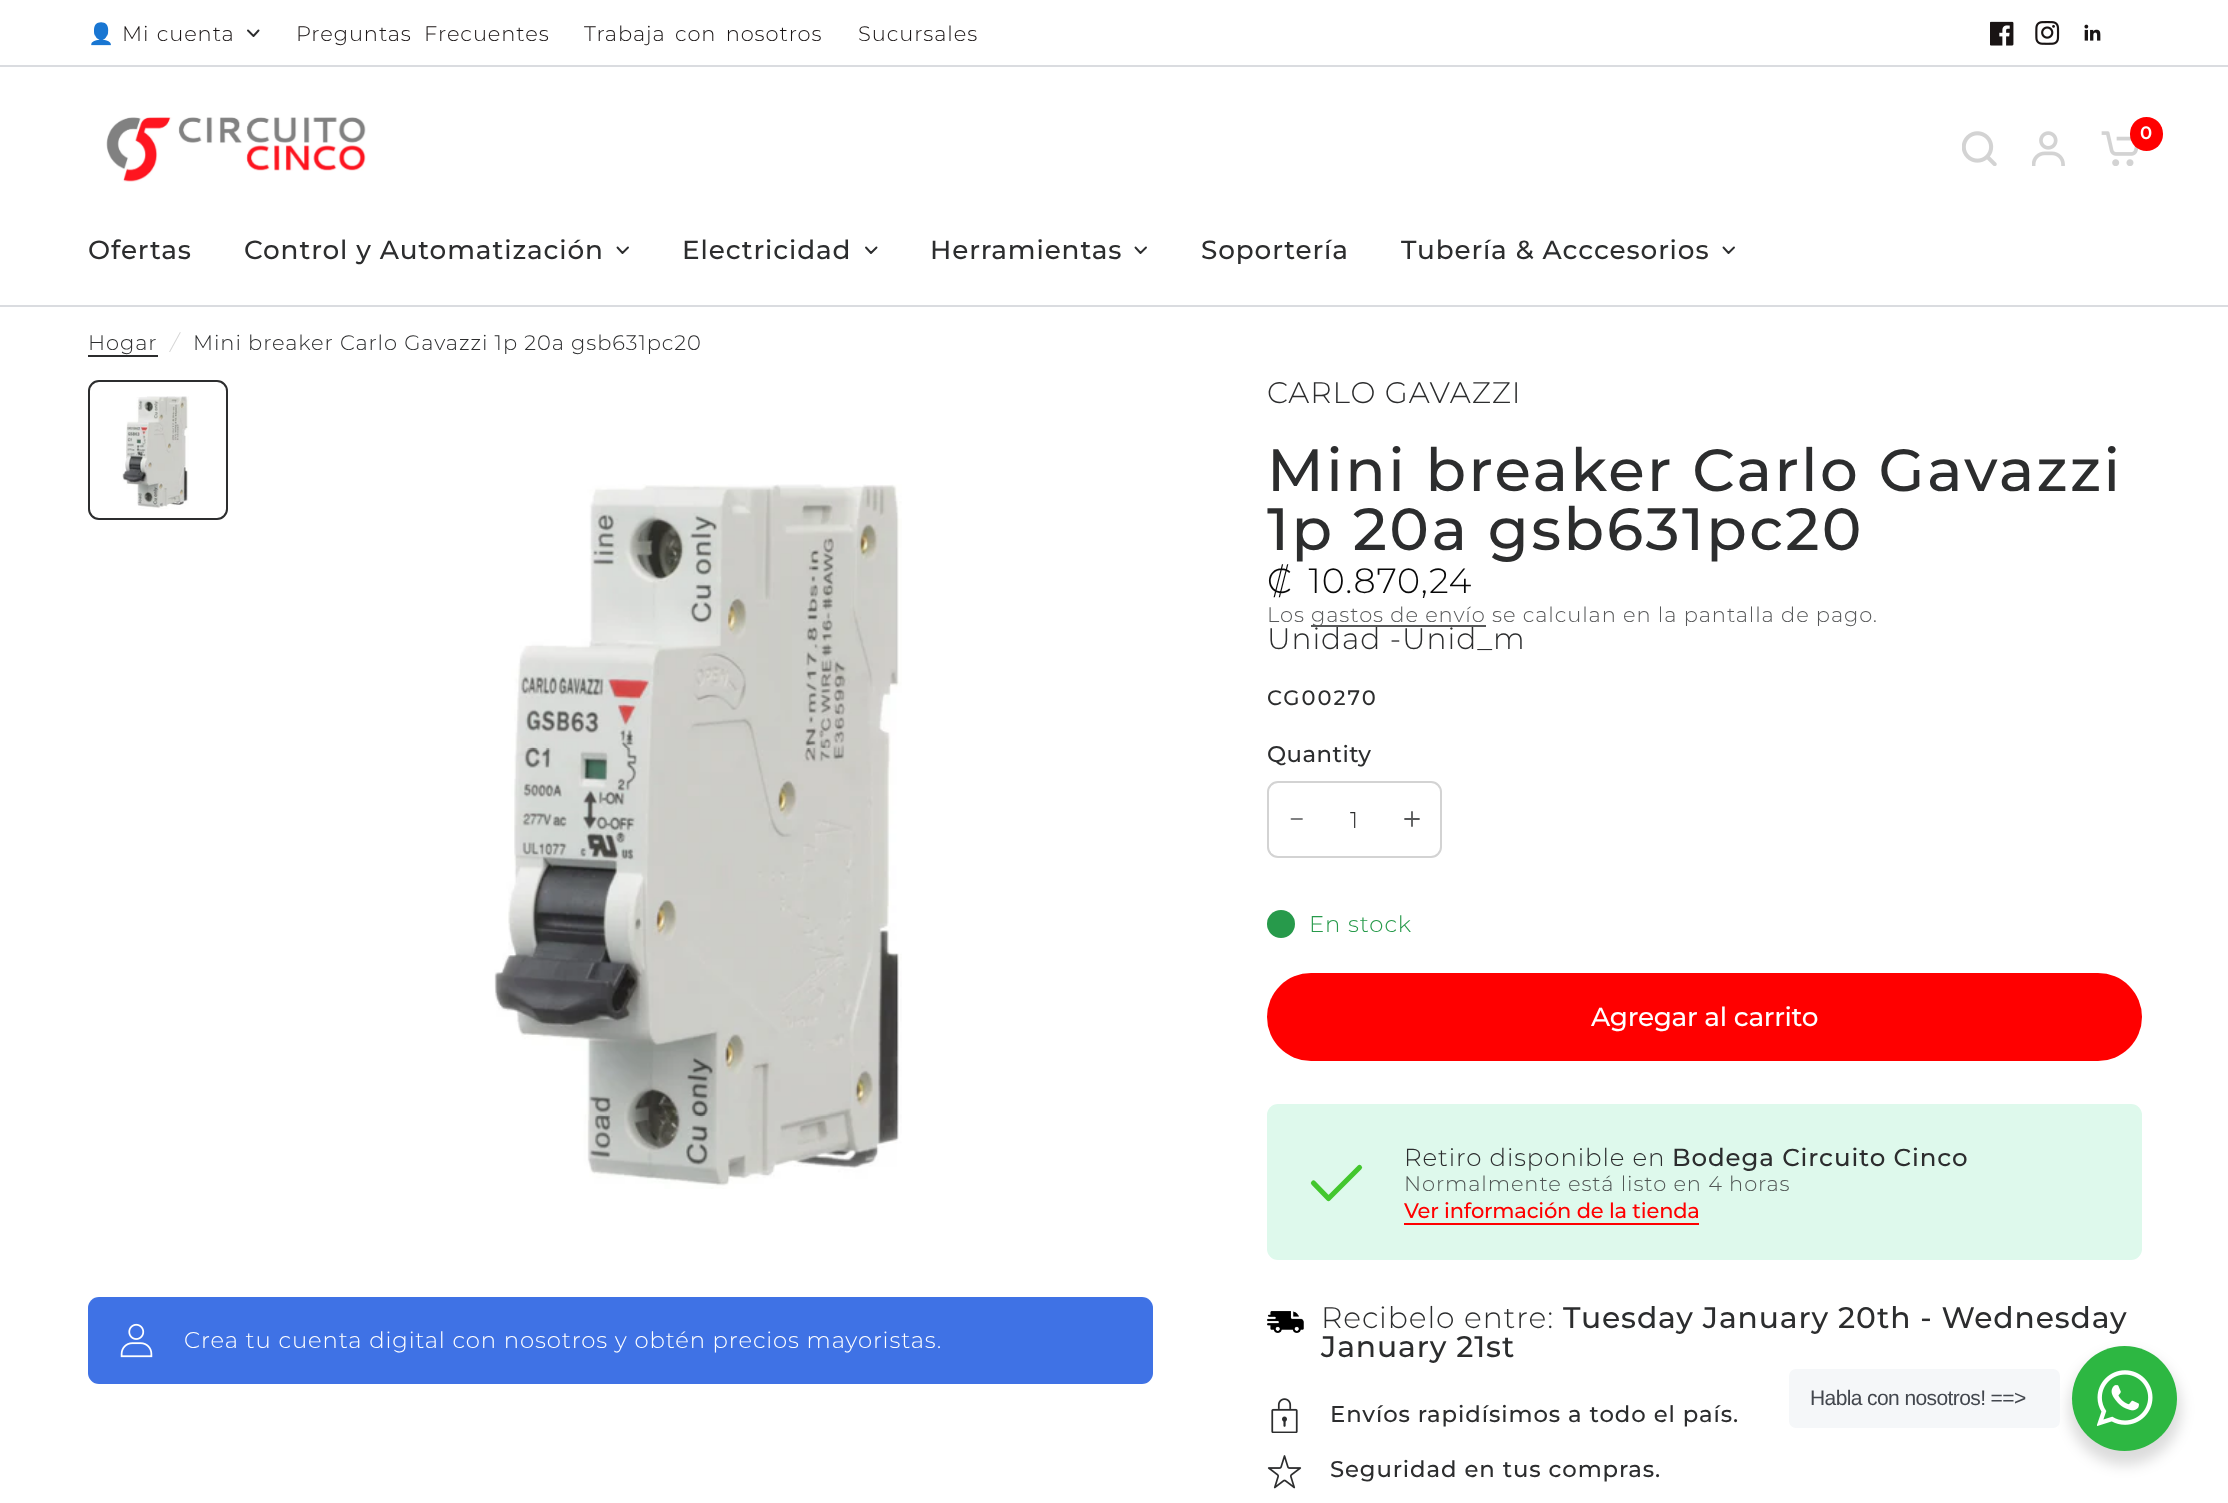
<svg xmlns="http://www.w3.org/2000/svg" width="2228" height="1503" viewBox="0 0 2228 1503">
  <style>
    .t1 { font: 21px Noto Color Emoji; letter-spacing: 0.9px; fill: #191414; }
    .t2 { font: 300 21px Montserrat; letter-spacing: 0.9px; fill: #191414; }
    .t3 { font: 600 18px Montserrat; letter-spacing: 0.9px; fill: #fff; }
    .t4 { font: 500 26.25px Montserrat; letter-spacing: 0.9px; fill: #2c2d2e; }
    .t5 { font: 300 21px Montserrat; letter-spacing: 0.9px; fill: #2c2d2e; }
    .t6 { font: italic 300 21px Montserrat; letter-spacing: 0.9px; fill: #d5d5d5; }
    .t7 { font: 300 22.75px Montserrat; letter-spacing: 0.9px; fill: #fff; }
    .t8 { font: 300 29.75px Montserrat; letter-spacing: 0.9px; fill: #2c2d2e; }
    .t9 { font: 500 59.5px Montserrat; letter-spacing: 2.4px; fill: #2c2d2e; }
    .t10 { font: 300 35px Montserrat; letter-spacing: 0.9px; fill: #080808; }
    .t11 { font: 300 21px Montserrat; letter-spacing: 0.9px; fill: #565758; }
    .t12 { font: 500 21px Montserrat; letter-spacing: 2px; fill: #2c2d2e; }
    .t13 { font: 500 22.75px Montserrat; letter-spacing: 0.5px; fill: #2c2d2e; }
    .t14 { font: 300 22.75px Montserrat; fill: #2c2d2e; }
    .t15 { font: 300 22.75px Montserrat; letter-spacing: 0.9px; fill: #279a4b; }
    .t16 { font: 500 26.25px Montserrat; letter-spacing: -0.25px; fill: #fff; }
    .t17 { font: 300 24.5px Montserrat; letter-spacing: 0.9px; fill: #2c2d2e; }
    .t18 { font: 500 24.5px Montserrat; letter-spacing: 0.9px; fill: #2c2d2e; }
    .t19 { font: 300 21px Montserrat; letter-spacing: 0.9px; fill: #505654; }
    .t20 { font: 500 21px Montserrat; letter-spacing: -0.2px; fill: #f00; }
    .t21 { font: 500 29.75px Montserrat; letter-spacing: 0.9px; fill: #2c2d2e; }
    .t22 { font: 500 22.75px Montserrat; letter-spacing: 0.9px; fill: #2c2d2e; }
    .t23 { font: 21px Liberation Sans; letter-spacing: -0.6px; fill: #43474e; }
  </style>
  <rect width="100%" height="100%" fill="#fff"/>
  <rect x="0" y="65" width="2228" height="2" fill="#dadce0"/>
  <text x="88" y="41" class="t1">👤</text>
  <text x="122" y="41" word-spacing="1" class="t2">Mi cuenta</text>
  <path d="M258.5 30.5L253.5 36L248 30.5" fill="none" stroke="#2c2d2e" stroke-width="1.9" stroke-linecap="round" stroke-linejoin="round"/>
  <text x="296" y="41" word-spacing="6" class="t2">Preguntas Frecuentes</text>
  <text x="584" y="41" word-spacing="3" class="t2">Trabaja con nosotros</text>
  <text x="858" y="41" class="t2">Sucursales</text>
  <image x="1990" y="21" width="24" height="25" href="images/1.png"/>
  <image x="2035" y="21" width="25" height="24" href="images/2.png"/>
  <image x="2084" y="24" width="17" height="17" href="images/3.png"/>
  <image x="106" y="117" width="260" height="65" href="images/4.png"/>
  <image x="1962" y="131" width="35" height="35" href="images/5.png"/>
  <image x="2032" y="131" width="33" height="35" href="images/6.png"/>
  <image x="2101" y="131" width="38" height="35" href="images/7.png"/>
  <rect x="2130" y="117" width="33" height="34" rx="16.5" fill="#f00"/>
  <text x="2140" y="139" class="t3">0</text>
  <text x="88" y="259" class="t4">Ofertas</text>
  <text x="244" y="259" class="t4">Control y Automatización</text>
  <path d="M628 247.5L622.5 253L617.5 247.5" fill="none" stroke="#2c2d2e" stroke-width="1.9" stroke-linecap="round" stroke-linejoin="round"/>
  <text x="682" y="259" class="t4">Electricidad</text>
  <path d="M876.5 247.5L871 253L866 247.5" fill="none" stroke="#2c2d2e" stroke-width="1.9" stroke-linecap="round" stroke-linejoin="round"/>
  <text x="930" y="259" class="t4">Herramientas</text>
  <path d="M1146 247.5L1140.5 253L1135.5 247.5" fill="none" stroke="#2c2d2e" stroke-width="1.9" stroke-linecap="round" stroke-linejoin="round"/>
  <text x="1201" y="259" class="t4">Soportería</text>
  <text x="1401" y="259" class="t4">Tubería &amp; Acccesorios</text>
  <path d="M1734 247.5L1728.5 253L1723.5 247.5" fill="none" stroke="#2c2d2e" stroke-width="1.9" stroke-linecap="round" stroke-linejoin="round"/>
  <rect x="0" y="305" width="2228" height="2" fill="#dadce0"/>
  <text x="88" y="350" class="t5">Hogar</text>
  <rect x="88" y="355" width="70" height="2" fill="#2c2d2e"/>
  <text x="171" y="350" class="t6">/</text>
  <text x="193" y="350" class="t5">Mini breaker Carlo Gavazzi 1p 20a gsb631pc20</text>
  <image x="122" y="396" width="67" height="113" href="images/8.png"/>
  <rect x="89" y="381" width="138" height="138" rx="10" fill="none" stroke="#2c2d2e" stroke-width="2"/>
  <image x="494" y="484" width="408" height="705" href="images/9.png"/>
  <rect x="88" y="1297" width="1065" height="87" rx="11" fill="#3f72e5"/>
  <image x="120" y="1323" width="33" height="35" href="images/10.png"/>
  <text x="184" y="1348" class="t7">Crea tu cuenta digital con nosotros y obtén precios mayoristas.</text>
  <text x="1267" y="403" class="t8">CARLO GAVAZZI</text>
  <text x="1267" y="491" class="t9">Mini breaker Carlo Gavazzi</text>
  <text x="1267" y="550" class="t9">1p 20a gsb631pc20</text>
  <text x="1267" y="593" word-spacing="6" class="t10">₡ 10.870,24</text>
  <text x="1267" y="622" class="t11">Los</text>
  <text x="1267" y="649" class="t8">Unidad -Unid_m</text>
  <rect x="1311" y="625" width="175" height="2" fill="#2c2d2ecc"/>
  <text x="1311" y="622" class="t11">gastos de envío se calculan en la pantalla de pago.</text>
  <text x="1267" y="705" class="t12">CG00270</text>
  <text x="1267" y="762" class="t13">Quantity</text>
  <rect x="1268" y="782" width="173" height="75" rx="10" fill="none" stroke="#d3d3d3" stroke-width="2"/>
  <path d="M1291.5 819H1302" fill="none" stroke="#808182" stroke-width="1.8" stroke-linecap="round" stroke-linejoin="round"/>
  <text x="1350" y="828" class="t14">1</text>
  <path d="M1405 819H1419M1412 812V826" fill="none" stroke="#565758" stroke-width="1.8" stroke-linecap="round" stroke-linejoin="round"/>
  <circle cx="1281" cy="924" r="14" fill="#279a4b"/>
  <text x="1309" y="932" class="t15">En stock</text>
  <rect x="1267" y="973" width="875" height="88" rx="44" fill="#f00"/>
  <text x="1591" y="1026" class="t16">Agregar al carrito</text>
  <rect x="1267" y="1104" width="875" height="156" rx="11" fill="#def9ec"/>
  <path d="M1359.5 1167.5L1328.5 1198.5L1313.5 1183" fill="none" stroke="#43c72e" stroke-width="5.2" stroke-linecap="round" stroke-linejoin="round"/>
  <text x="1404" y="1166" class="t17">Retiro disponible en</text>
  <text x="1672" y="1166" class="t18">Bodega Circuito Cinco</text>
  <text x="1404" y="1191" class="t19">Normalmente está listo en 4 horas</text>
  <text x="1404" y="1218" class="t20">Ver información de la tienda</text>
  <rect x="1404" y="1223" width="295" height="2" fill="#f00"/>
  <image x="1267" y="1311" width="37" height="22" href="images/11.png"/>
  <text x="1321" y="1328" class="t8">Recibelo entre:</text>
  <text x="1563" y="1328" class="t21">Tuesday January 20th - Wednesday</text>
  <text x="1321" y="1357" class="t21">January 21st</text>
  <image x="1271" y="1398" width="27" height="35" href="images/12.png"/>
  <text x="1330" y="1422" class="t22">Envíos rapidísimos a todo el país.</text>
  <image x="1267" y="1455" width="35" height="34" href="images/13.png"/>
  <text x="1330" y="1477" class="t22">Seguridad en tus compras.</text>
  <rect x="2069" y="1353" width="112" height="112" rx="56" fill="#00000024" filter="blur(7px)"/>
  <rect x="1789" y="1369" width="271" height="59" rx="7" fill="#f5f7f9"/>
  <text x="1810" y="1405" class="t23">Habla con nosotros! ==&gt;</text>
  <circle cx="2124.5" cy="1398.5" r="52.5" fill="#2db742"/>
  <image x="2097" y="1370" width="56" height="56" href="images/14.png"/>
</svg>
